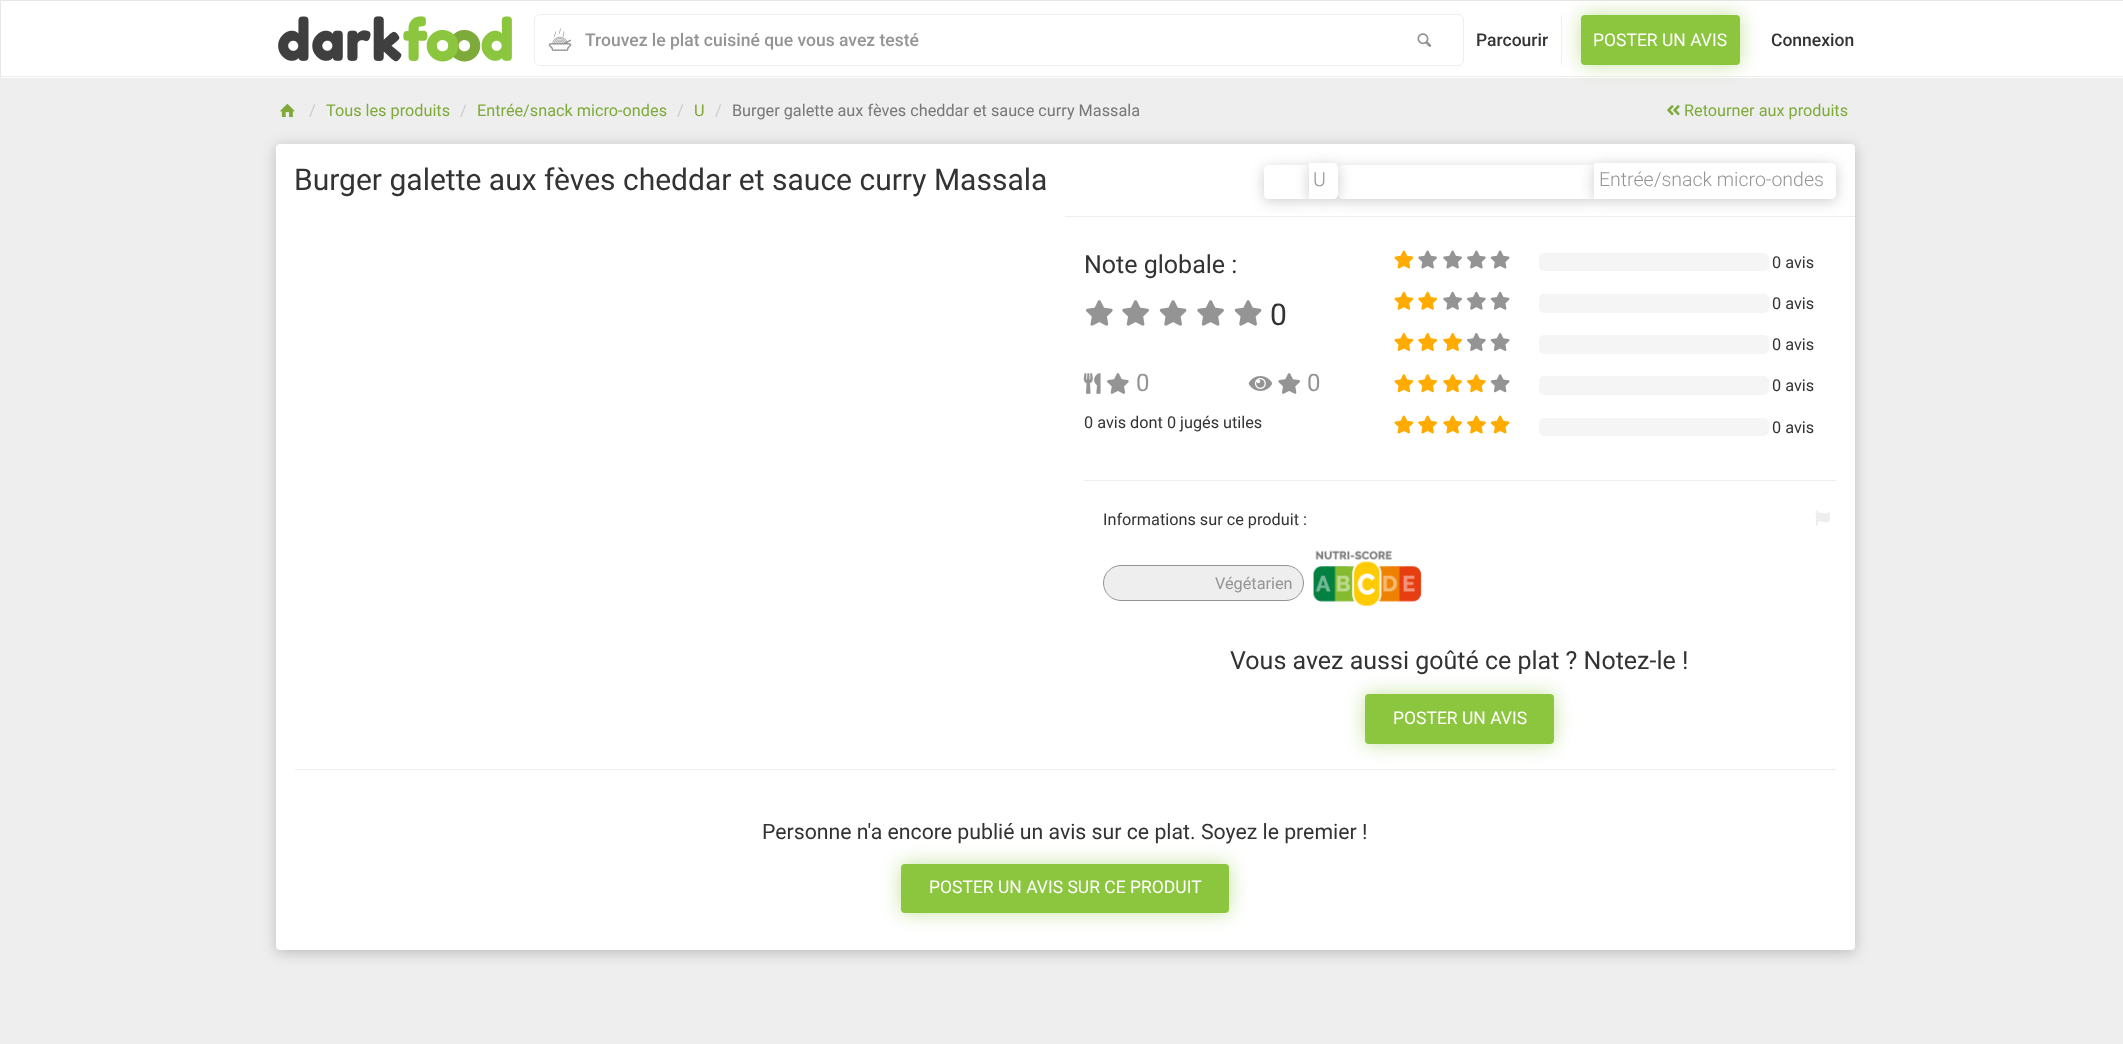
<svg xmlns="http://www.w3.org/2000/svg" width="2123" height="1044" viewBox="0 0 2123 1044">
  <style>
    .t1 { font: 500 17.5px Roboto; fill: #949494; }
    .t2 { font: 500 17.5px Roboto; fill: #333; }
    .t3 { font: 17.5px Roboto; fill: #fff; }
    .t4 { font: 16.25px Roboto; fill: #ccc; }
    .t5 { font: 16.25px Roboto; fill: #7eaa39; }
    .t6 { font: 16.25px Roboto; fill: #777; }
    .t7 { font: 30px Roboto; fill: #333; }
    .t8 { font: 300 19.5px Roboto; fill: #949494; }
    .t9 { font: 25px Roboto; fill: #333; }
    .t10 { font: 24px Roboto; fill: #949494; }
    .t11 { font: 16.25px Roboto; fill: #333; }
    .t12 { font: 16.25px Roboto; fill: #949494; }
    .t13 { font: 21.25px Roboto; fill: #333; }
  </style>
  <rect width="100%" height="100%" fill="#eee"/>
  <rect x="1" y="1" width="2122" height="77" fill="#fff"/>
  <rect x="0" y="0" width="2123" height="1" fill="#e7e7e7"/>
  <rect x="0" y="76" width="2123" height="1" fill="#eee"/>
  <rect x="0" y="0" width="1" height="78" fill="#e7e7e7"/>
  <image x="278" y="16" width="234" height="46" href="images/1.png"/>
  <rect x="534.5" y="14.5" width="929" height="51" rx="5.5" fill="none" stroke="#eee"/>
  <path d="M539 15H1385V65H539C537 65 535 63 535 61V19C535 17 537 15 539 15Z" fill="#fff"/>
  <image x="548" y="28" width="24" height="23" href="images/2.png"/>
  <text x="585" y="46" class="t1">Trouvez le plat cuisiné que vous avez testé</text>
  <image x="1417" y="33" width="15" height="14" href="images/3.png"/>
  <text x="1476" y="46" class="t2">Parcourir</text>
  <rect x="1561" y="15" width="1" height="50" fill="#eee"/>
  <rect x="1581" y="15" width="159" height="50" rx="4" fill="#8cc63f80" filter="blur(9.5px)"/>
  <rect x="1581" y="15" width="159" height="50" rx="4" fill="#8cc63f"/>
  <text x="1593" y="46" class="t3">POSTER UN AVIS</text>
  <text x="1771" y="46" class="t2">Connexion</text>
  <image x="280" y="104" width="15" height="14" href="images/4.png"/>
  <text x="309" y="116" class="t4">/</text>
  <text x="326" y="116" class="t5">Tous les produits</text>
  <text x="460" y="116" class="t4">/</text>
  <text x="477" y="116" class="t5">Entrée/snack micro-ondes</text>
  <text x="677" y="116" class="t4">/</text>
  <text x="694" y="116" class="t5">U</text>
  <text x="715" y="116" class="t4">/</text>
  <text x="732" y="116" class="t6">Burger galette aux fèves cheddar et sauce curry Massala</text>
  <image x="1667" y="105" width="13" height="11" href="images/5.png"/>
  <text x="1684" y="116" class="t5">Retourner aux produits</text>
  <rect x="276" y="146" width="1579" height="807" rx="4" fill="#00000033" filter="blur(7px)"/>
  <rect x="276" y="144" width="1579" height="806" rx="4" fill="#fff"/>
  <text x="294" y="190" class="t7">Burger galette aux fèves cheddar et sauce curry Massala</text>
  <rect x="1264" y="168" width="45" height="33" rx="5" fill="#00000033" filter="blur(7px)"/>
  <path d="M1269 165H1309V199H1269C1266 199 1264 197 1264 194V170C1264 167 1266 165 1269 165Z" fill="#fff"/>
  <rect x="1338" y="168" width="256" height="33" rx="5" fill="#00000033" filter="blur(7px)"/>
  <path d="M1343 165H1594V199H1343C1340 199 1338 197 1338 194V170C1338 167 1340 165 1343 165Z" fill="#fff"/>
  <rect x="1309" y="165" width="29" height="36" rx="5" fill="#00000033" filter="blur(7px)"/>
  <path d="M1309 163H1333C1336 163 1338 165 1338 168V194C1338 197 1336 199 1333 199H1309Z" fill="#fff"/>
  <text x="1313" y="186" class="t8">U</text>
  <rect x="1594" y="165" width="242" height="36" rx="5" fill="#00000033" filter="blur(7px)"/>
  <path d="M1594 163H1831C1834 163 1836 165 1836 168V194C1836 197 1834 199 1831 199H1594Z" fill="#fff"/>
  <text x="1599" y="186" class="t8">Entrée/snack micro-ondes</text>
  <rect x="1065" y="216" width="790" height="1" fill="#eee"/>
  <text x="1084" y="273" class="t9">Note globale :</text>
  <image x="1086" y="300" width="27" height="26" href="images/6.png"/>
  <image x="1122" y="300" width="27" height="26" href="images/7.png"/>
  <image x="1159" y="300" width="28" height="26" href="images/8.png"/>
  <image x="1197" y="300" width="27" height="26" href="images/7.png"/>
  <image x="1234" y="300" width="28" height="26" href="images/8.png"/>
  <text x="1270" y="325" class="t7">0</text>
  <image x="1083" y="373" width="18" height="21" href="images/9.png"/>
  <image x="1107" y="373" width="22" height="21" href="images/10.png"/>
  <text x="1136" y="391" class="t10">0</text>
  <image x="1248" y="376" width="24" height="15" href="images/11.png"/>
  <image x="1278" y="373" width="22" height="21" href="images/12.png"/>
  <text x="1307" y="391" class="t10">0</text>
  <text x="1084" y="428" class="t11">0 avis dont 0 jugés utiles</text>
  <image x="1394" y="250" width="20" height="19" href="images/13.png"/>
  <image x="1418" y="250" width="19" height="19" href="images/14.png"/>
  <image x="1443" y="250" width="19" height="19" href="images/14.png"/>
  <image x="1467" y="250" width="19" height="19" href="images/15.png"/>
  <image x="1490" y="250" width="20" height="19" href="images/16.png"/>
  <rect x="1539" y="253" width="230" height="18" rx="5" fill="#f5f5f5"/>
  <text x="1772" y="268" class="t11">0 avis</text>
  <image x="1394" y="291" width="20" height="19" href="images/17.png"/>
  <image x="1418" y="291" width="19" height="19" href="images/18.png"/>
  <image x="1443" y="291" width="19" height="19" href="images/19.png"/>
  <image x="1467" y="291" width="19" height="19" href="images/20.png"/>
  <image x="1490" y="291" width="20" height="19" href="images/21.png"/>
  <rect x="1539" y="294" width="230" height="19" rx="5" fill="#f5f5f5"/>
  <text x="1772" y="309" class="t11">0 avis</text>
  <image x="1394" y="333" width="20" height="18" href="images/22.png"/>
  <image x="1418" y="333" width="19" height="18" href="images/23.png"/>
  <image x="1443" y="333" width="19" height="18" href="images/23.png"/>
  <image x="1467" y="333" width="19" height="18" href="images/24.png"/>
  <image x="1490" y="333" width="20" height="18" href="images/25.png"/>
  <rect x="1539" y="335" width="230" height="19" rx="5" fill="#f5f5f5"/>
  <text x="1772" y="350" class="t11">0 avis</text>
  <image x="1394" y="374" width="20" height="19" href="images/26.png"/>
  <image x="1418" y="374" width="19" height="19" href="images/27.png"/>
  <image x="1443" y="374" width="19" height="19" href="images/27.png"/>
  <image x="1467" y="374" width="19" height="19" href="images/28.png"/>
  <image x="1490" y="374" width="20" height="19" href="images/29.png"/>
  <rect x="1539" y="376" width="230" height="19" rx="5" fill="#f5f5f5"/>
  <text x="1772" y="391" class="t11">0 avis</text>
  <image x="1394" y="415" width="20" height="19" href="images/13.png"/>
  <image x="1418" y="415" width="19" height="19" href="images/30.png"/>
  <image x="1443" y="415" width="19" height="19" href="images/30.png"/>
  <image x="1467" y="415" width="19" height="19" href="images/31.png"/>
  <image x="1490" y="415" width="20" height="19" href="images/32.png"/>
  <rect x="1539" y="418" width="230" height="18" rx="5" fill="#f5f5f5"/>
  <text x="1772" y="433" class="t11">0 avis</text>
  <rect x="1084" y="480" width="752" height="1" fill="#eee"/>
  <text x="1103" y="525" class="t11">Informations sur ce produit :</text>
  <rect x="1103.5" y="565.5" width="200" height="35" rx="17.5" fill="#eee" stroke="#949494"/>
  <text x="1215" y="589" class="t12">Végétarien</text>
  <image x="1313" y="550" width="109" height="57" href="images/33.png"/>
  <image x="1815" y="510" width="15" height="16" href="images/34.png"/>
  <text x="1230" y="669" class="t9">Vous avez aussi goûté ce plat ? Notez-le !</text>
  <rect x="295" y="769" width="1541" height="1" fill="#eee"/>
  <rect x="1365" y="694" width="189" height="50" rx="4" fill="#8cc63f80" filter="blur(9.5px)"/>
  <rect x="1365" y="694" width="189" height="50" rx="4" fill="#8cc63f"/>
  <text x="1393" y="724" class="t3">POSTER UN AVIS</text>
  <text x="762" y="839" class="t13">Personne n'a encore publié un avis sur ce plat. Soyez le premier !</text>
  <rect x="901" y="864" width="328" height="49" rx="4" fill="#8cc63f80" filter="blur(9.5px)"/>
  <rect x="901" y="864" width="328" height="49" rx="4" fill="#8cc63f"/>
  <text x="929" y="893" class="t3">POSTER UN AVIS SUR CE PRODUIT</text>
</svg>
